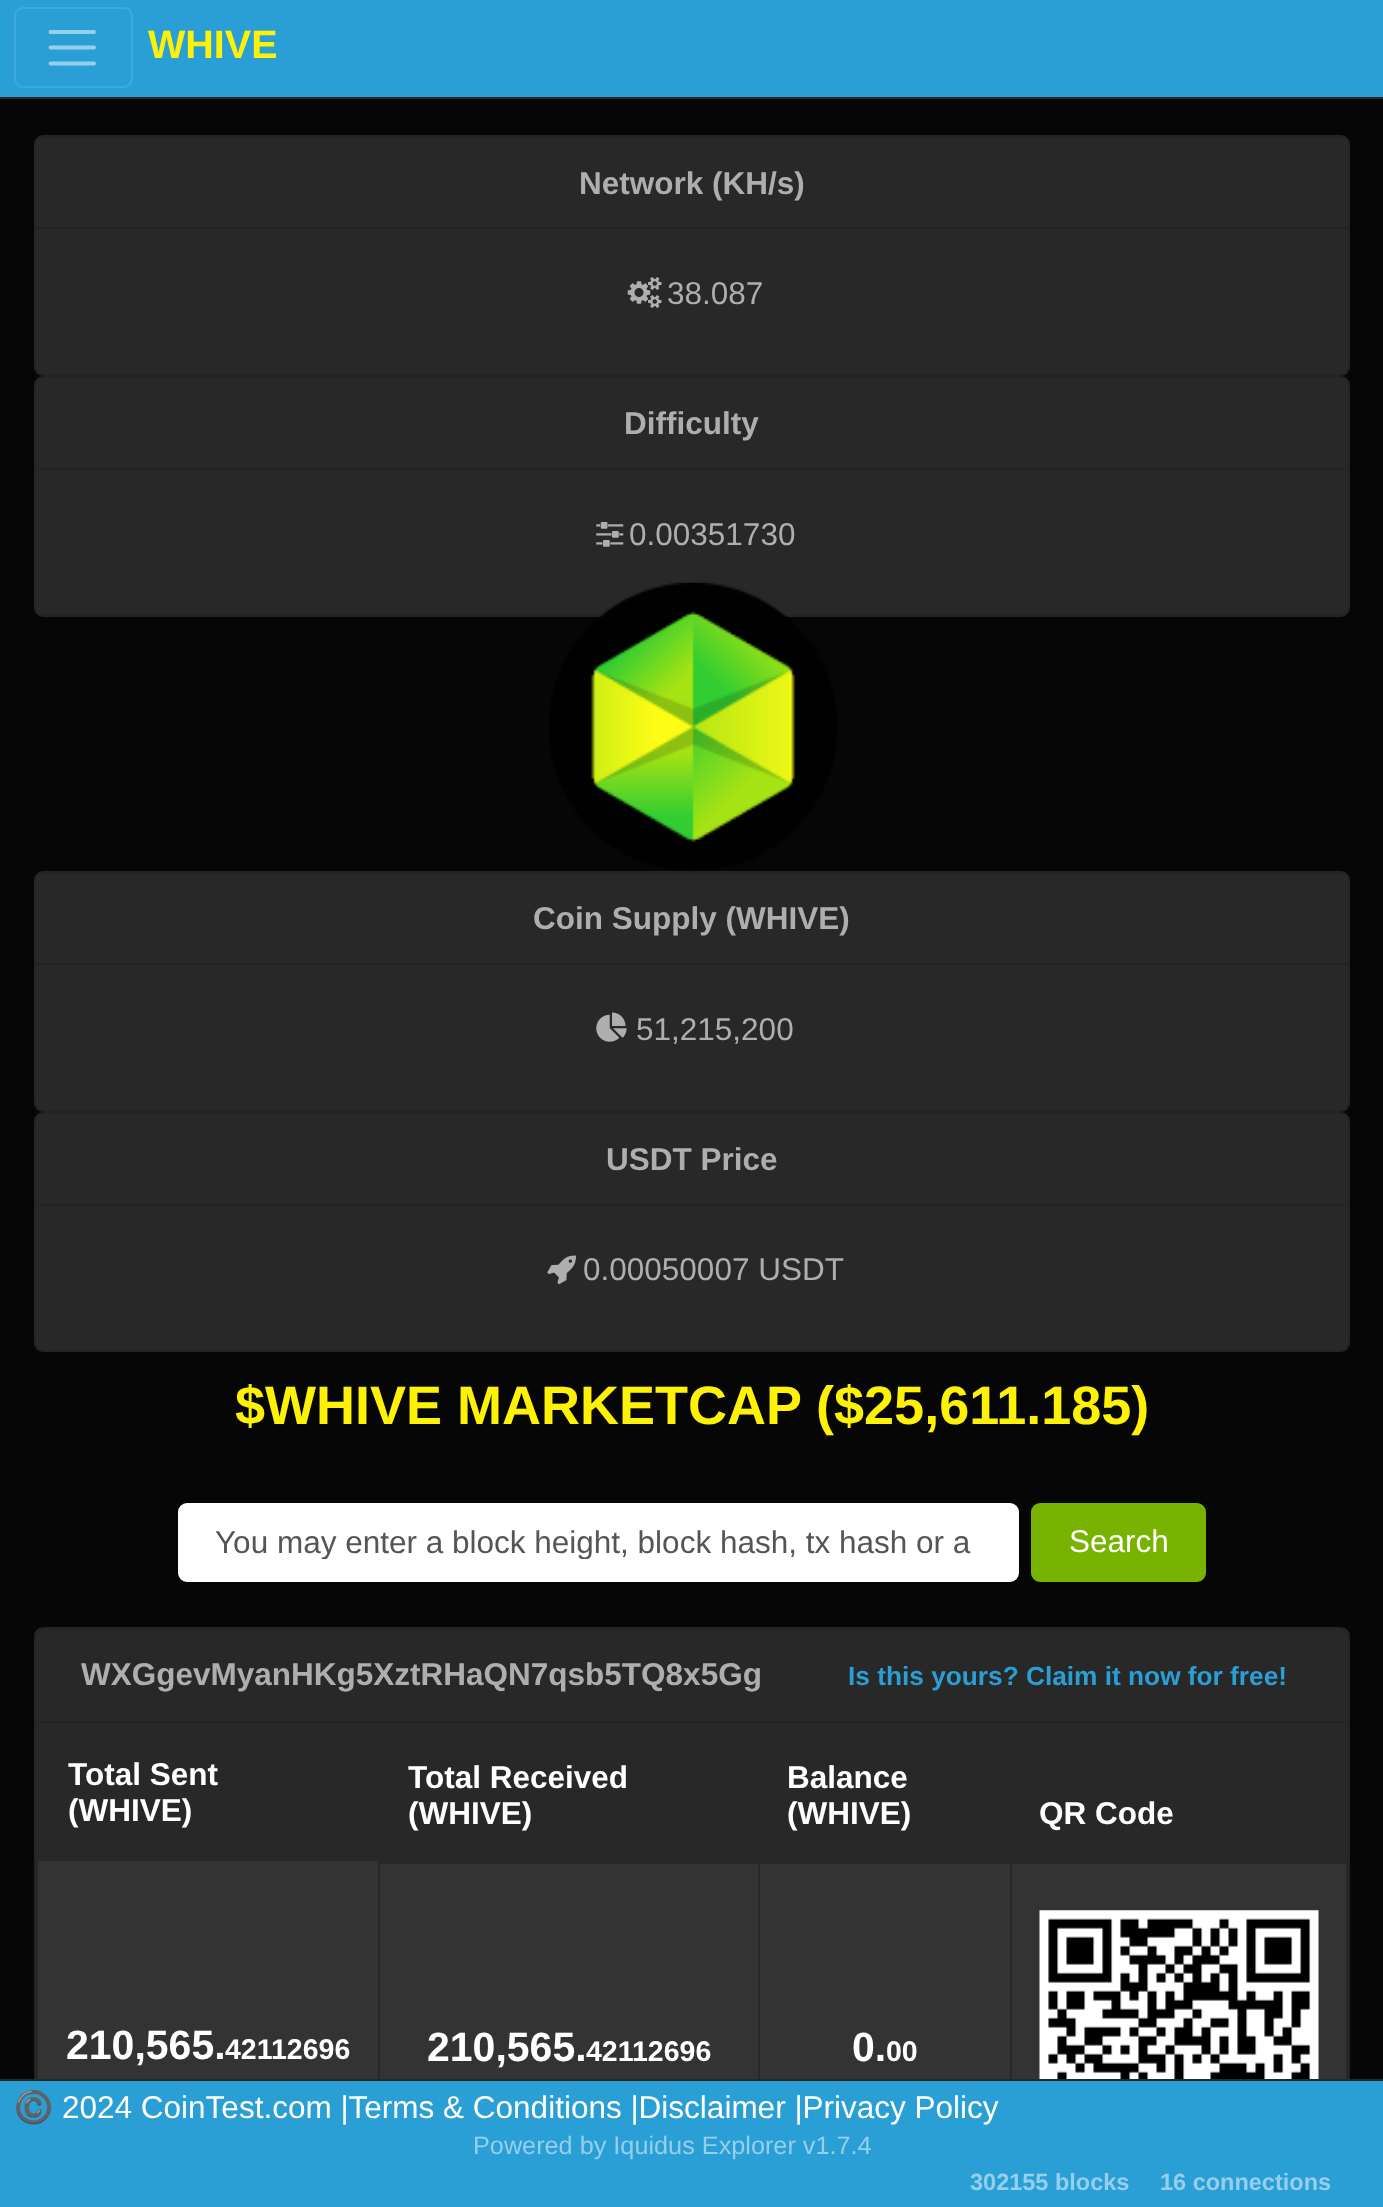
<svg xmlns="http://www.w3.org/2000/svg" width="1383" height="2207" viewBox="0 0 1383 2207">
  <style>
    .t1 { font: bold 39.5px Liberation Sans; fill: #fdf105; }
    .t2 { font: bold 31.5px Liberation Sans; fill: #adafae; }
    .t3 { font: 31.5px Liberation Sans; fill: #adafae; }
    .t4 { font: bold 54px Liberation Sans; fill: #fdf105; }
    .t5 { font: 31.5px Liberation Sans; fill: #555; }
    .t6 { font: 31.5px Liberation Sans; fill: #fff; }
    .t7 { font: bold 26.25px Liberation Sans; fill: #2a9fd6; }
    .t8 { font: bold 31.5px Liberation Sans; fill: #fff; }
    .t9 { font: bold 41px Liberation Sans; fill: #fff; }
    .t10 { font: bold 28.5px Liberation Sans; fill: #fff; }
    .t11 { font: 31.5px Noto Color Emoji; fill: #fff; }
    .t12 { font: 25.25px Liberation Sans; fill: #95cfeb; }
    .t13 { font: bold 23.5px Liberation Sans; fill: #95cfeb; }
  </style>
  <defs>
    <clipPath id="clip1"><rect x="216" y="1523" width="765" height="36"/></clipPath>
  </defs>
  <rect width="100%" height="100%" fill="#060606"/>
  <rect x="0" y="0" width="1383" height="97" fill="#2a9fd6"/>
  <rect x="0" y="97" width="1383" height="2" fill="#282828"/>
  <rect x="15" y="8" width="117" height="79" rx="8" fill="none" stroke="#3fa9da" stroke-width="2"/>
  <path d="M50.5 32H94M50.5 47.5H94M50.5 63.5H94" fill="none" stroke="#95cfeb" stroke-width="3.9" stroke-linecap="round"/>
  <text x="148" y="58" class="t1">WHIVE</text>
  <rect x="34" y="135" width="1316" height="241" rx="9" fill="#282828"/>
  <rect x="35" y="136" width="1314" height="239" rx="8" fill="none" stroke="#0000001f" stroke-width="2"/>
  <rect x="36" y="227" width="1312" height="2" fill="#232323"/>
  <text x="579" y="194" class="t2">Network (KH/s)</text>
  <image x="627" y="277" width="35" height="31" href="images/1.png"/>
  <text x="667" y="304" class="t3">38.087</text>
  <rect x="34" y="376" width="1316" height="241" rx="9" fill="#282828"/>
  <rect x="35" y="377" width="1314" height="239" rx="8" fill="none" stroke="#0000001f" stroke-width="2"/>
  <rect x="36" y="468" width="1312" height="2" fill="#232323"/>
  <text x="624" y="434" class="t2">Difficulty</text>
  <image x="596" y="522" width="28" height="25" href="images/2.png"/>
  <text x="629" y="545" class="t3">0.00351730</text>
  <image x="549" y="582" width="288" height="289" href="images/3.png"/>
  <rect x="34" y="871" width="1316" height="241" rx="9" fill="#282828"/>
  <rect x="35" y="872" width="1314" height="239" rx="8" fill="none" stroke="#0000001f" stroke-width="2"/>
  <rect x="36" y="963" width="1312" height="2" fill="#232323"/>
  <text x="533" y="929" class="t2">Coin Supply (WHIVE)</text>
  <image x="596" y="1012" width="31" height="30" href="images/4.png"/>
  <text x="636" y="1040" class="t3">51,215,200</text>
  <rect x="34" y="1112" width="1316" height="240" rx="9" fill="#282828"/>
  <rect x="35" y="1113" width="1314" height="238" rx="8" fill="none" stroke="#0000001f" stroke-width="2"/>
  <rect x="36" y="1204" width="1312" height="2" fill="#232323"/>
  <text x="606" y="1170" class="t2">USDT Price</text>
  <image x="547" y="1255" width="29" height="30" href="images/5.png"/>
  <text x="583" y="1280" class="t3">0.00050007 USDT</text>
  <text x="235" y="1424" class="t4">$WHIVE MARKETCAP ($25,611.185)</text>
  <rect x="179" y="1504" width="839" height="77" rx="8" fill="#fff" stroke="#fff" stroke-width="2"/>
  <g clip-path="url(#clip1)">
    <text x="215" y="1553" class="t5">You may enter a block height, block hash, tx hash or a</text>
  </g>
  <rect x="1032" y="1504" width="173" height="77" rx="8" fill="#77b300" stroke="#77b300" stroke-width="2"/>
  <text x="1069" y="1552" class="t6">Search</text>
  <rect x="34" y="1627" width="1316" height="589" rx="9" fill="#282828"/>
  <rect x="35" y="1628" width="1314" height="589" rx="8" fill="none" stroke="#0000001f" stroke-width="2"/>
  <rect x="36" y="1721" width="1312" height="2" fill="#232323"/>
  <text x="81" y="1685" class="t2">WXGgevMyanHKg5XztRHaQN7qsb5TQ8x5Gg</text>
  <text x="848" y="1685" class="t7">Is this yours? Claim it now for free!</text>
  <text x="68" y="1785" class="t8">Total Sent</text>
  <text x="68" y="1821" class="t8">(WHIVE)</text>
  <text x="408" y="1788" class="t8">Total Received</text>
  <text x="408" y="1824" class="t8">(WHIVE)</text>
  <rect x="38" y="1861" width="1308" height="218" fill="#333"/>
  <rect x="1010" y="1859" width="2" height="220" fill="#282828"/>
  <rect x="1008" y="1859" width="342" height="5" fill="#282828"/>
  <rect x="378" y="1859" width="2" height="220" fill="#282828"/>
  <rect x="758" y="1859" width="2" height="220" fill="#282828"/>
  <rect x="378" y="1861" width="635" height="3" fill="#282828"/>
  <text x="787" y="1788" class="t8">Balance</text>
  <text x="787" y="1824" class="t8">(WHIVE)</text>
  <text x="1039" y="1824" class="t8">QR Code</text>
  <text x="66" y="2059" class="t9">210,565.</text>
  <text x="225" y="2059" class="t10">42112696</text>
  <text x="427" y="2061" class="t9">210,565.</text>
  <text x="586" y="2061" class="t10">42112696</text>
  <text x="852" y="2061" class="t9">0.</text>
  <text x="886" y="2061" class="t10">00</text>
  <image x="1039" y="1910" width="280" height="169" href="images/6.png"/>
  <rect x="0" y="2081" width="1383" height="126" fill="#2a9fd6"/>
  <rect x="0" y="2079" width="1383" height="2" fill="#282828"/>
  <text x="14" y="2118" class="t11">©️</text>
  <text x="62" y="2118" class="t6">2024 CoinTest.com |Terms &amp; Conditions |Disclaimer |Privacy Policy</text>
  <text x="473" y="2154" class="t12">Powered by Iquidus Explorer v1.7.4</text>
  <text x="970" y="2190" class="t13">302155 blocks</text>
  <text x="1160" y="2190" class="t13">16 connections</text>
</svg>
